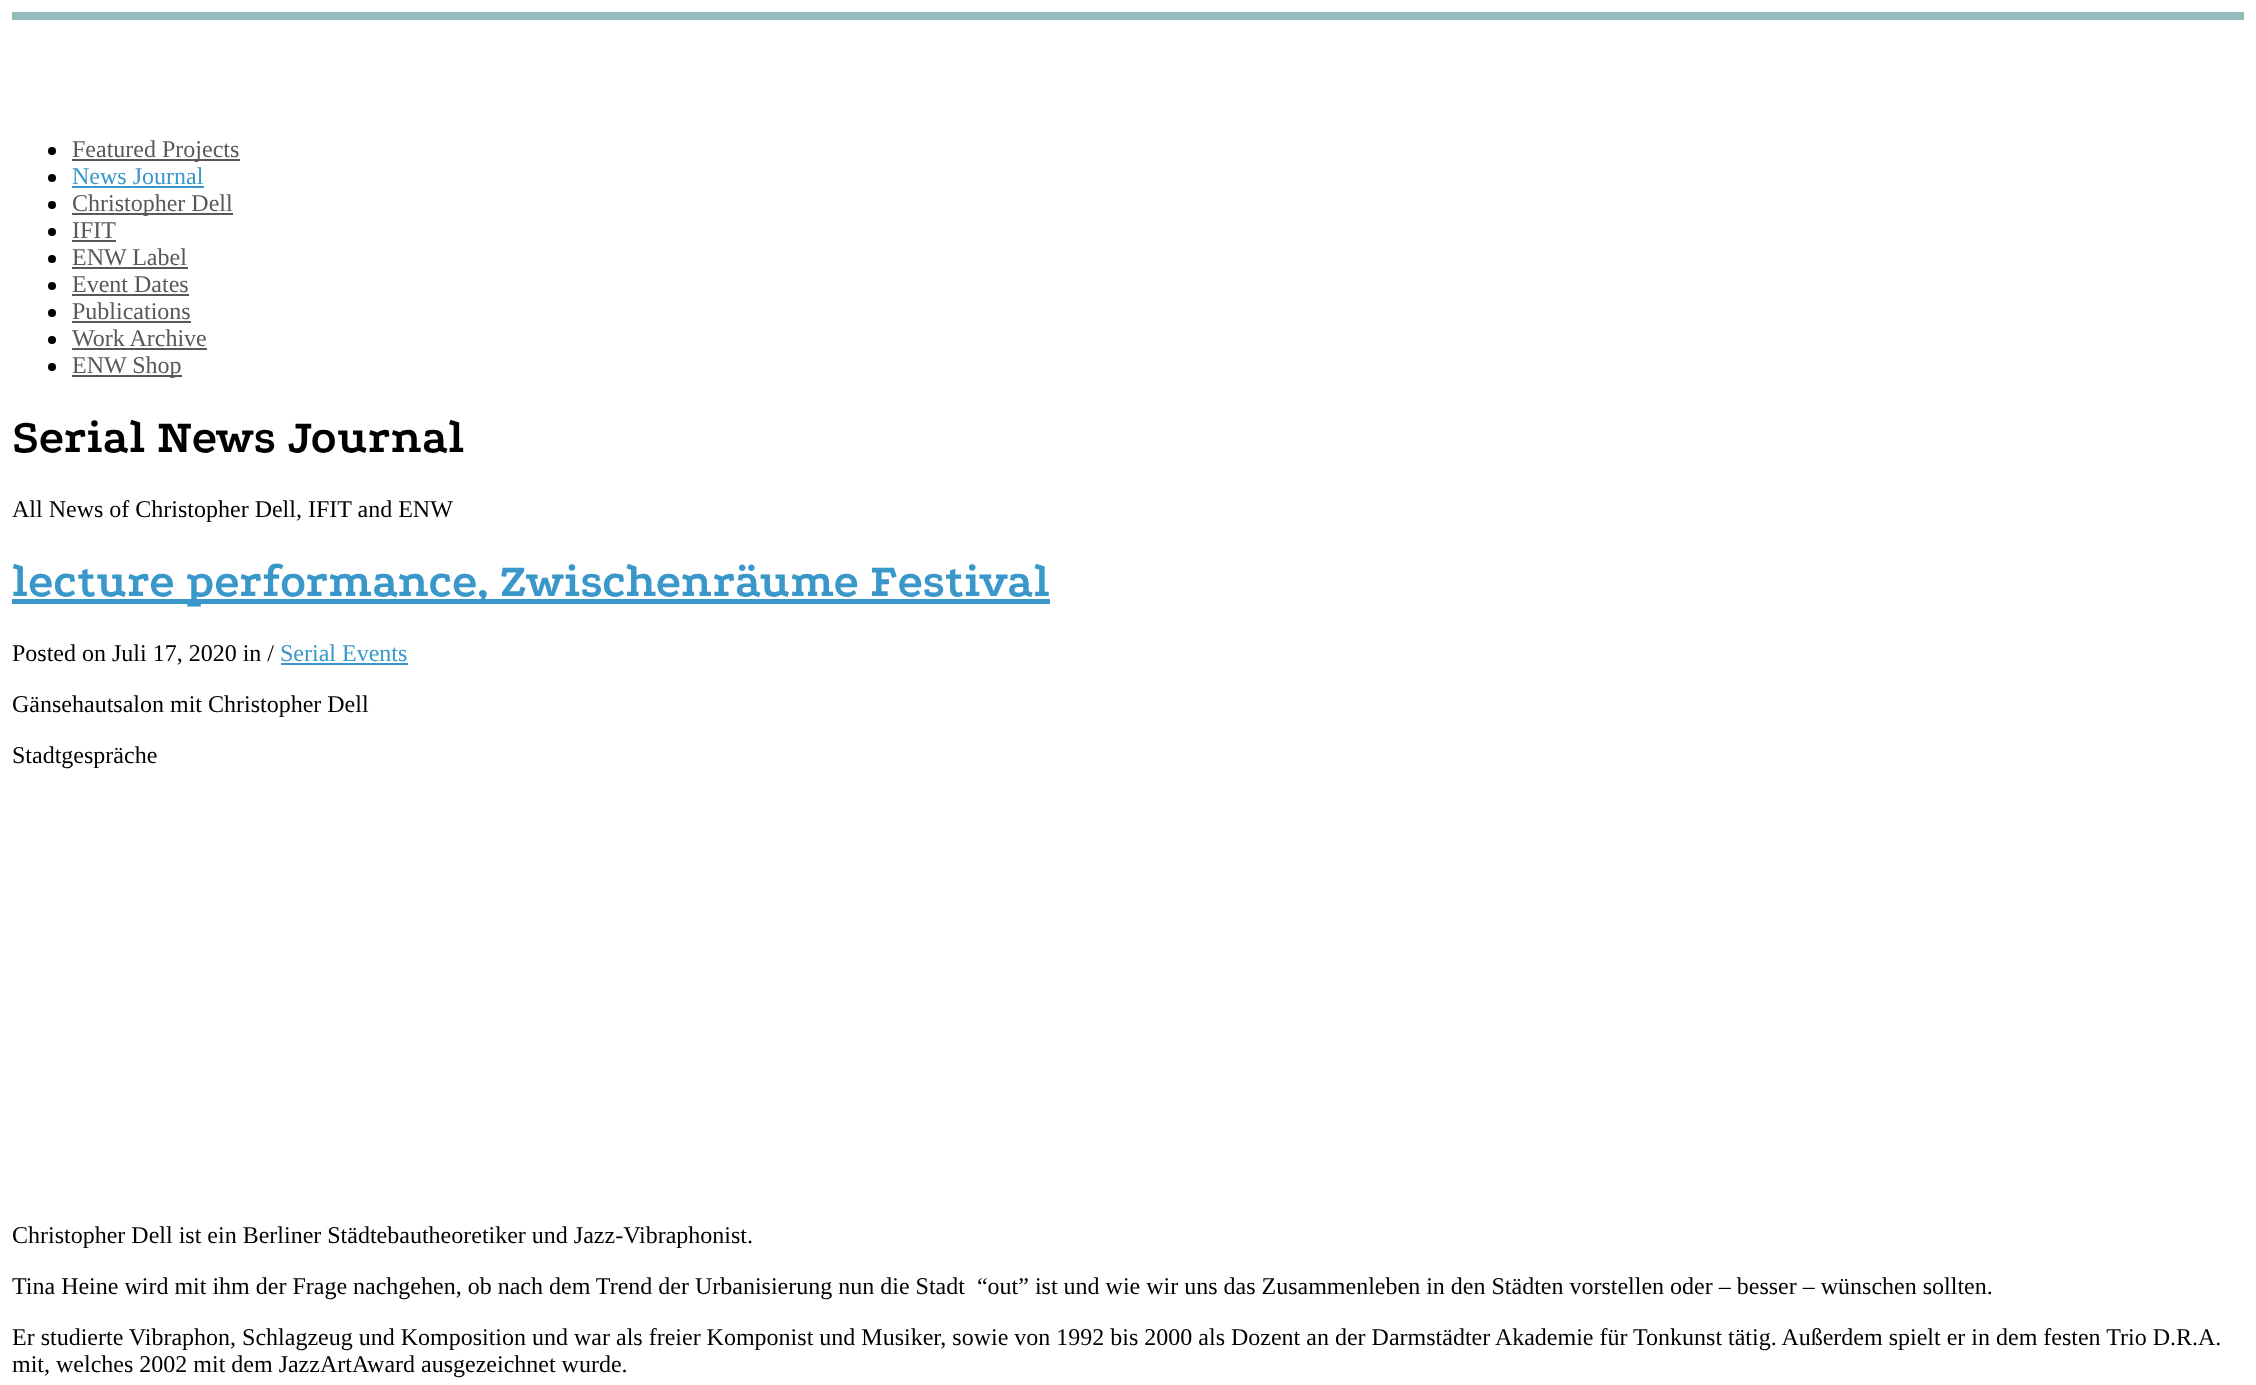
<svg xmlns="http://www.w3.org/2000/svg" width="2256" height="1385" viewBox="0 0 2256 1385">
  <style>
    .t1 { font: 24px Liberation Serif; fill: #585858; }
    .t2 { font: 24px Liberation Serif; fill: #3997ca; }
    .t3 { font: bold 48px Podkova; fill: #000; }
    .t4 { font: 24px Liberation Serif; fill: #000; }
    .t5 { font: bold 48px Podkova; fill: #3997ca; }
  </style>
  <rect width="100%" height="100%" fill="#fff"/>
  <rect x="12" y="12" width="2232" height="8" fill="#93bcbe"/>
  <circle cx="52" cy="151" r="4" fill="#000"/>
  <rect x="72" y="159" width="168" height="2" fill="#585858"/>
  <text x="72" y="157" class="t1">Featured Projects</text>
  <circle cx="52" cy="178" r="4" fill="#000"/>
  <text x="72" y="184" class="t2">News Journal</text>
  <rect x="72" y="186" width="132" height="2" fill="#3997ca"/>
  <circle cx="52" cy="205" r="4" fill="#000"/>
  <rect x="72" y="213" width="161" height="2" fill="#585858"/>
  <text x="72" y="211" class="t1">Christopher Dell</text>
  <circle cx="52" cy="232" r="4" fill="#000"/>
  <text x="72" y="238" class="t1">IFIT</text>
  <rect x="72" y="240" width="44" height="2" fill="#585858"/>
  <circle cx="52" cy="259" r="4" fill="#000"/>
  <text x="72" y="265" class="t1">ENW Label</text>
  <rect x="72" y="267" width="116" height="2" fill="#585858"/>
  <circle cx="52" cy="286" r="4" fill="#000"/>
  <text x="72" y="292" class="t1">Event Dates</text>
  <rect x="72" y="294" width="117" height="2" fill="#585858"/>
  <circle cx="52" cy="313" r="4" fill="#000"/>
  <text x="72" y="319" class="t1">Publications</text>
  <rect x="72" y="321" width="119" height="2" fill="#585858"/>
  <circle cx="52" cy="340" r="4" fill="#000"/>
  <text x="72" y="346" class="t1">Work Archive</text>
  <rect x="72" y="348" width="135" height="2" fill="#585858"/>
  <circle cx="52" cy="367" r="4" fill="#000"/>
  <rect x="72" y="375" width="110" height="2" fill="#585858"/>
  <text x="72" y="373" class="t1">ENW Shop</text>
  <text x="12" y="452" class="t3">Serial News Journal</text>
  <text x="12" y="517" class="t4">All News of Christopher Dell, IFIT and ENW</text>
  <rect x="12" y="599" width="1038" height="5" fill="#3997ca"/>
  <text x="12" y="596" class="t5">lecture performance, Zwischenräume Festival</text>
  <text x="12" y="661" class="t4">Posted on Juli 17, 2020 in /</text>
  <text x="280" y="661" class="t2">Serial Events</text>
  <rect x="281" y="663" width="127" height="2" fill="#3997ca"/>
  <text x="12" y="712" class="t4">Gänsehautsalon mit Christopher Dell</text>
  <text x="12" y="763" class="t4">Stadtgespräche</text>
  <text x="12" y="1243" class="t4">Christopher Dell ist ein Berliner Städtebautheoretiker und Jazz-Vibraphonist.</text>
  <text x="12" y="1294" class="t4" xml:space="preserve">Tina Heine wird mit ihm der Frage nachgehen, ob nach dem Trend der Urbanisierung nun die Stadt  “out” ist und wie wir uns das Zusammenleben in den Städten vorstellen oder – besser – wünschen sollten.</text>
  <text x="12" y="1345" class="t4">Er studierte Vibraphon, Schlagzeug und Komposition und war als freier Komponist und Musiker, sowie von 1992 bis 2000 als Dozent an der Darmstädter Akademie für Tonkunst tätig. Außerdem spielt er in dem festen Trio D.R.A.</text>
  <text x="12" y="1372" class="t4">mit, welches 2002 mit dem JazzArtAward ausgezeichnet wurde.</text>
</svg>
